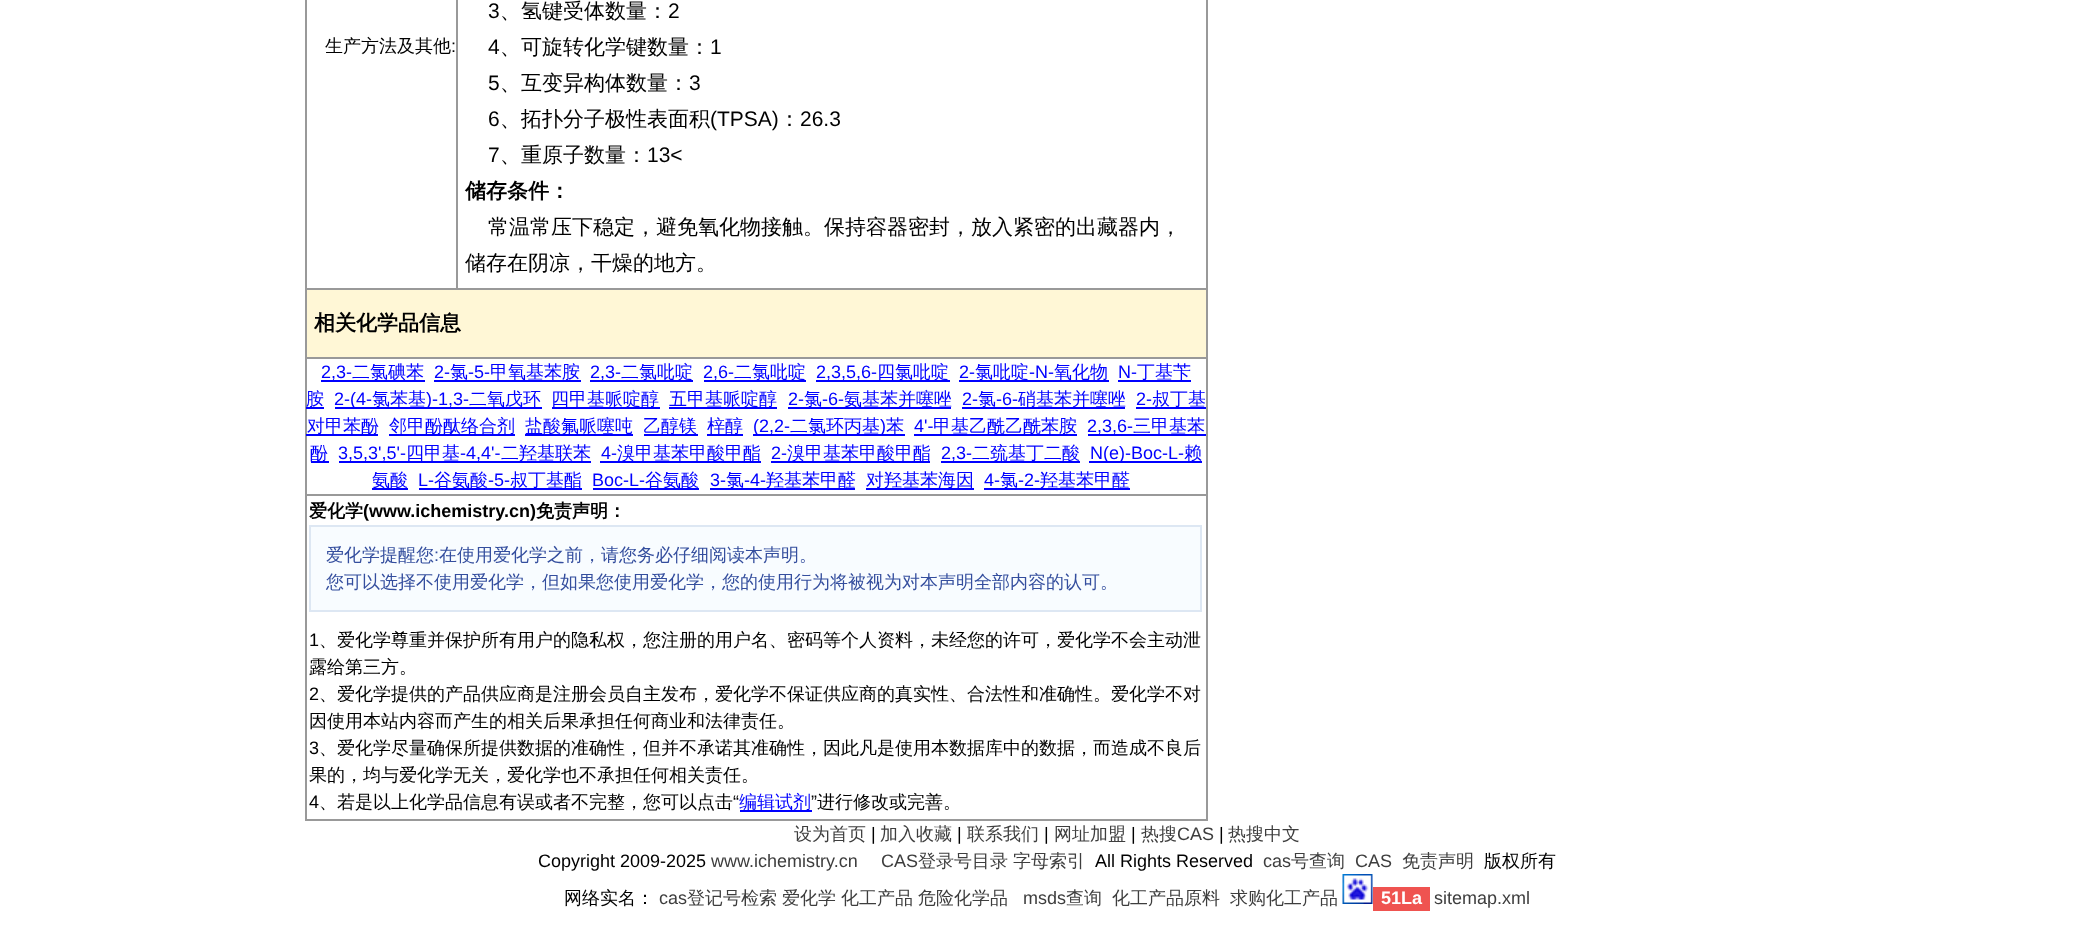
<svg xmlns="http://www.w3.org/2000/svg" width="2094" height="929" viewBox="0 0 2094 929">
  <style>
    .t1 { font: 500 18px WenQuanYi Zen Hei; fill: #000; }
    .t2 { font: 18px Liberation Sans; fill: #000; }
    .t3 { font: 21px Liberation Sans; fill: #000; }
    .t4 { font: 500 21px WenQuanYi Zen Hei; fill: #000; }
    .t5 { font: bold 21px WenQuanYi Zen Hei; fill: #000; }
    .t6 { font: 18px Liberation Sans; fill: #00f; }
    .t7 { font: 500 18px WenQuanYi Zen Hei; fill: #00f; }
    .t8 { font: bold 18px WenQuanYi Zen Hei; fill: #000; }
    .t9 { font: bold 18px Liberation Sans; fill: #000; }
    .t10 { font: 500 18px WenQuanYi Zen Hei; fill: #344e9e; }
    .t11 { font: 18px Liberation Sans; fill: #344e9e; }
    .t12 { font: 500 18px WenQuanYi Zen Hei; fill: #3e3e3e; }
    .t13 { font: 18px Liberation Sans; fill: #3e3e3e; }
    .t14 { font: bold 18px Liberation Sans; fill: #fff; }
  </style>
  <rect width="100%" height="100%" fill="#fff"/>
  <rect x="1206" y="0" width="2" height="821" fill="#999"/>
  <rect x="305" y="819" width="903" height="2" fill="#999"/>
  <rect x="305" y="0" width="2" height="821" fill="#999"/>
  <text x="325" y="52" class="t1">生产方法及其他</text>
  <text x="451" y="52" class="t2">:</text>
  <rect x="305" y="288" width="903" height="2" fill="#999"/>
  <rect x="456" y="0" width="2" height="290" fill="#999"/>
  <text x="488" y="18" class="t3">3</text>
  <text x="500" y="18" class="t4">、氢键受体数量：</text>
  <text x="668" y="18" class="t3">2</text>
  <text x="488" y="54" class="t3">4</text>
  <text x="500" y="54" class="t4">、可旋转化学键数量：</text>
  <text x="710" y="54" class="t3">1</text>
  <text x="488" y="90" class="t3">5</text>
  <text x="500" y="90" class="t4">、互变异构体数量：</text>
  <text x="689" y="90" class="t3">3</text>
  <text x="488" y="126" class="t3">6</text>
  <text x="500" y="126" class="t4">、拓扑分子极性表面积</text>
  <text x="710" y="126" class="t3">(TPSA)</text>
  <text x="779" y="126" class="t4">：</text>
  <text x="800" y="126" class="t3">26.3</text>
  <text x="488" y="162" class="t3">7</text>
  <text x="500" y="162" class="t4">、重原子数量：</text>
  <text x="647" y="162" class="t3">13&lt;</text>
  <text x="465" y="198" class="t5">储存条件：</text>
  <text x="488" y="234" class="t4">常温常压下稳定，避免氧化物接触。保持容器密封，放入紧密的出藏器内，</text>
  <text x="465" y="270" class="t4">储存在阴凉，干燥的地方。</text>
  <rect x="307" y="290" width="899" height="67" fill="#fff7d6"/>
  <text x="314" y="330" class="t5">相关化学品信息</text>
  <rect x="305" y="357" width="903" height="2" fill="#999"/>
  <rect x="321" y="380" width="104" height="2" fill="#00f"/>
  <text x="321" y="378" class="t6">2,3-</text>
  <text x="352" y="378" class="t7">二氯碘苯</text>
  <text x="434" y="378" class="t6">2-</text>
  <rect x="434" y="380" width="147" height="2" fill="#00f"/>
  <text x="450" y="378" class="t7">氯</text>
  <text x="468" y="378" class="t6">-5-</text>
  <text x="490" y="378" class="t7">甲氧基苯胺</text>
  <rect x="590" y="380" width="103" height="2" fill="#00f"/>
  <text x="590" y="378" class="t6">2,3-</text>
  <text x="621" y="378" class="t7">二氯吡啶</text>
  <rect x="704" y="380" width="102" height="2" fill="#00f"/>
  <text x="703" y="378" class="t6">2,6-</text>
  <text x="734" y="378" class="t7">二氯吡啶</text>
  <rect x="816" y="380" width="134" height="2" fill="#00f"/>
  <text x="816" y="378" class="t6">2,3,5,6-</text>
  <text x="877" y="378" class="t7">四氯吡啶</text>
  <text x="959" y="378" class="t6">2-</text>
  <rect x="959" y="380" width="150" height="2" fill="#00f"/>
  <text x="975" y="378" class="t7">氯吡啶</text>
  <text x="1029" y="378" class="t6">-N-</text>
  <text x="1054" y="378" class="t7">氧化物</text>
  <text x="1118" y="378" class="t6">N-</text>
  <rect x="1118" y="380" width="73" height="2" fill="#00f"/>
  <text x="1137" y="378" class="t7">丁基苄</text>
  <rect x="306" y="407" width="18" height="2" fill="#00f"/>
  <text x="306" y="405" class="t7">胺</text>
  <rect x="335" y="407" width="207" height="2" fill="#00f"/>
  <text x="334" y="405" class="t6">2-(4-</text>
  <text x="372" y="405" class="t7">氯苯基</text>
  <text x="426" y="405" class="t6">)-1,3-</text>
  <text x="469" y="405" class="t7">二氧戊环</text>
  <rect x="552" y="407" width="108" height="2" fill="#00f"/>
  <text x="551" y="405" class="t7">四甲基哌啶醇</text>
  <rect x="669" y="407" width="108" height="2" fill="#00f"/>
  <text x="669" y="405" class="t7">五甲基哌啶醇</text>
  <text x="788" y="405" class="t6">2-</text>
  <rect x="788" y="407" width="163" height="2" fill="#00f"/>
  <text x="804" y="405" class="t7">氯</text>
  <text x="822" y="405" class="t6">-6-</text>
  <text x="844" y="405" class="t7">氨基苯并噻唑</text>
  <text x="962" y="405" class="t6">2-</text>
  <rect x="962" y="407" width="163" height="2" fill="#00f"/>
  <text x="978" y="405" class="t7">氯</text>
  <text x="996" y="405" class="t6">-6-</text>
  <text x="1018" y="405" class="t7">硝基苯并噻唑</text>
  <text x="1136" y="405" class="t6">2-</text>
  <rect x="1136" y="407" width="70" height="2" fill="#00f"/>
  <text x="1152" y="405" class="t7">叔丁基</text>
  <rect x="306" y="434" width="72" height="2" fill="#00f"/>
  <text x="307" y="432" class="t7">对甲苯酚</text>
  <rect x="389" y="434" width="126" height="2" fill="#00f"/>
  <text x="389" y="432" class="t7">邻甲酚酞络合剂</text>
  <rect x="525" y="434" width="108" height="2" fill="#00f"/>
  <text x="525" y="432" class="t7">盐酸氟哌噻吨</text>
  <rect x="644" y="434" width="54" height="2" fill="#00f"/>
  <text x="643" y="432" class="t7">乙醇镁</text>
  <rect x="707" y="434" width="36" height="2" fill="#00f"/>
  <text x="707" y="432" class="t7">梓醇</text>
  <rect x="753" y="434" width="152" height="2" fill="#00f"/>
  <text x="753" y="432" class="t6">(2,2-</text>
  <text x="790" y="432" class="t7">二氯环丙基</text>
  <text x="880" y="432" class="t6">)</text>
  <text x="886" y="432" class="t7">苯</text>
  <text x="914" y="432" class="t6">4'-</text>
  <rect x="914" y="434" width="163" height="2" fill="#00f"/>
  <text x="933" y="432" class="t7">甲基乙酰乙酰苯胺</text>
  <rect x="1088" y="434" width="118" height="2" fill="#00f"/>
  <text x="1087" y="432" class="t6">2,3,6-</text>
  <text x="1133" y="432" class="t7">三甲基苯</text>
  <rect x="311" y="461" width="18" height="2" fill="#00f"/>
  <text x="310" y="459" class="t7">酚</text>
  <rect x="339" y="461" width="252" height="2" fill="#00f"/>
  <text x="338" y="459" class="t6">3,5,3',5'-</text>
  <text x="406" y="459" class="t7">四甲基</text>
  <text x="460" y="459" class="t6">-4,4'-</text>
  <text x="501" y="459" class="t7">二羟基联苯</text>
  <text x="601" y="459" class="t6">4-</text>
  <rect x="600" y="461" width="161" height="2" fill="#00f"/>
  <text x="617" y="459" class="t7">溴甲基苯甲酸甲酯</text>
  <text x="771" y="459" class="t6">2-</text>
  <rect x="771" y="461" width="159" height="2" fill="#00f"/>
  <text x="787" y="459" class="t7">溴甲基苯甲酸甲酯</text>
  <rect x="941" y="461" width="139" height="2" fill="#00f"/>
  <text x="941" y="459" class="t6">2,3-</text>
  <text x="972" y="459" class="t7">二巯基丁二酸</text>
  <rect x="1089" y="461" width="113" height="2" fill="#00f"/>
  <text x="1090" y="459" class="t6">N(e)-Boc-L-</text>
  <text x="1184" y="459" class="t7">赖</text>
  <rect x="372" y="488" width="36" height="2" fill="#00f"/>
  <text x="372" y="486" class="t7">氨酸</text>
  <text x="418" y="486" class="t6">L-</text>
  <rect x="419" y="488" width="163" height="2" fill="#00f"/>
  <text x="434" y="486" class="t7">谷氨酸</text>
  <text x="488" y="486" class="t6">-5-</text>
  <text x="510" y="486" class="t7">叔丁基酯</text>
  <text x="592" y="486" class="t6">Boc-L-</text>
  <rect x="593" y="488" width="106" height="2" fill="#00f"/>
  <text x="645" y="486" class="t7">谷氨酸</text>
  <text x="710" y="486" class="t6">3-</text>
  <rect x="710" y="488" width="145" height="2" fill="#00f"/>
  <text x="726" y="486" class="t7">氯</text>
  <text x="744" y="486" class="t6">-4-</text>
  <text x="766" y="486" class="t7">羟基苯甲醛</text>
  <rect x="866" y="488" width="108" height="2" fill="#00f"/>
  <text x="866" y="486" class="t7">对羟基苯海因</text>
  <text x="984" y="486" class="t6">4-</text>
  <rect x="984" y="488" width="146" height="2" fill="#00f"/>
  <text x="1000" y="486" class="t7">氯</text>
  <text x="1018" y="486" class="t6">-2-</text>
  <text x="1040" y="486" class="t7">羟基苯甲醛</text>
  <rect x="305" y="494" width="903" height="2" fill="#999"/>
  <text x="309" y="517" class="t8">爱化学</text>
  <text x="363" y="517" class="t9">(www.ichemistry.cn)</text>
  <text x="536" y="517" class="t8">免责声明：</text>
  <rect x="310" y="526" width="891" height="85" fill="#f8fcff" stroke="#dde7f3" stroke-width="2"/>
  <text x="326" y="561" class="t10">爱化学提醒您</text>
  <text x="434" y="561" class="t11">:</text>
  <text x="439" y="561" class="t10">在使用爱化学之前，请您务必仔细阅读本声明。</text>
  <text x="326" y="588" class="t10">您可以选择不使用爱化学，但如果您使用爱化学，您的使用行为将被视为对本声明全部内容的认可。</text>
  <text x="309" y="646" class="t2">1</text>
  <text x="319" y="646" class="t1">、爱化学尊重并保护所有用户的隐私权，您注册的用户名、密码等个人资料，未经您的许可，爱化学不会主动泄</text>
  <text x="309" y="673" class="t1">露给第三方。</text>
  <text x="309" y="700" class="t2">2</text>
  <text x="319" y="700" class="t1">、爱化学提供的产品供应商是注册会员自主发布，爱化学不保证供应商的真实性、合法性和准确性。爱化学不对</text>
  <text x="309" y="727" class="t1">因使用本站内容而产生的相关后果承担任何商业和法律责任。</text>
  <text x="309" y="754" class="t2">3</text>
  <text x="319" y="754" class="t1">、爱化学尽量确保所提供数据的准确性，但并不承诺其准确性，因此凡是使用本数据库中的数据，而造成不良后</text>
  <text x="309" y="781" class="t1">果的，均与爱化学无关，爱化学也不承担任何相关责任。</text>
  <text x="309" y="808" class="t2">4</text>
  <text x="319" y="808" class="t1">、若是以上化学品信息有误或者不完整，您可以点击</text>
  <text x="733" y="808" class="t2">“</text>
  <rect x="740" y="810" width="72" height="2" fill="#00f"/>
  <text x="739" y="808" class="t7">编辑试剂</text>
  <text x="811" y="808" class="t2">”</text>
  <text x="817" y="808" class="t1">进行修改或完善。</text>
  <text x="794" y="840" class="t12">设为首页</text>
  <text x="871" y="840" class="t2">|</text>
  <text x="880" y="840" class="t12">加入收藏</text>
  <text x="957" y="840" class="t2">|</text>
  <text x="967" y="840" class="t12">联系我们</text>
  <text x="1044" y="840" class="t2">|</text>
  <text x="1054" y="840" class="t12">网址加盟</text>
  <text x="1131" y="840" class="t2">|</text>
  <text x="1141" y="840" class="t12">热搜</text>
  <text x="1177" y="840" class="t13">CAS</text>
  <text x="1219" y="840" class="t2">|</text>
  <text x="1228" y="840" class="t12">热搜中文</text>
  <text x="538" y="867" class="t2">Copyright 2009-2025</text>
  <text x="711" y="867" class="t13">www.ichemistry.cn</text>
  <text x="881" y="867" class="t13">CAS</text>
  <text x="918" y="867" class="t12">登录号目录</text>
  <text x="1013" y="867" class="t12">字母索引</text>
  <text x="1095" y="867" class="t2">All Rights Reserved</text>
  <text x="1263" y="867" class="t13">cas</text>
  <text x="1291" y="867" class="t12">号查询</text>
  <text x="1355" y="867" class="t13">CAS</text>
  <text x="1402" y="867" class="t12">免责声明</text>
  <text x="1484" y="867" class="t1">版权所有</text>
  <text x="564" y="904" class="t1">网络实名：</text>
  <text x="659" y="904" class="t13">cas</text>
  <text x="687" y="904" class="t12">登记号检索</text>
  <text x="782" y="904" class="t12">爱化学</text>
  <text x="841" y="904" class="t12">化工产品</text>
  <text x="918" y="904" class="t12">危险化学品</text>
  <text x="1023" y="904" class="t13">msds</text>
  <text x="1066" y="904" class="t12">查询</text>
  <text x="1112" y="904" class="t12">化工产品原料</text>
  <text x="1230" y="904" class="t12">求购化工产品</text>
  <image x="1342" y="874" width="31" height="30" href="images/1.png"/>
  <rect x="1373" y="887" width="57" height="24" fill="#ef5350"/>
  <text x="1381" y="904" class="t14">51La</text>
  <text x="1434" y="904" class="t13">sitemap.xml</text>
</svg>
